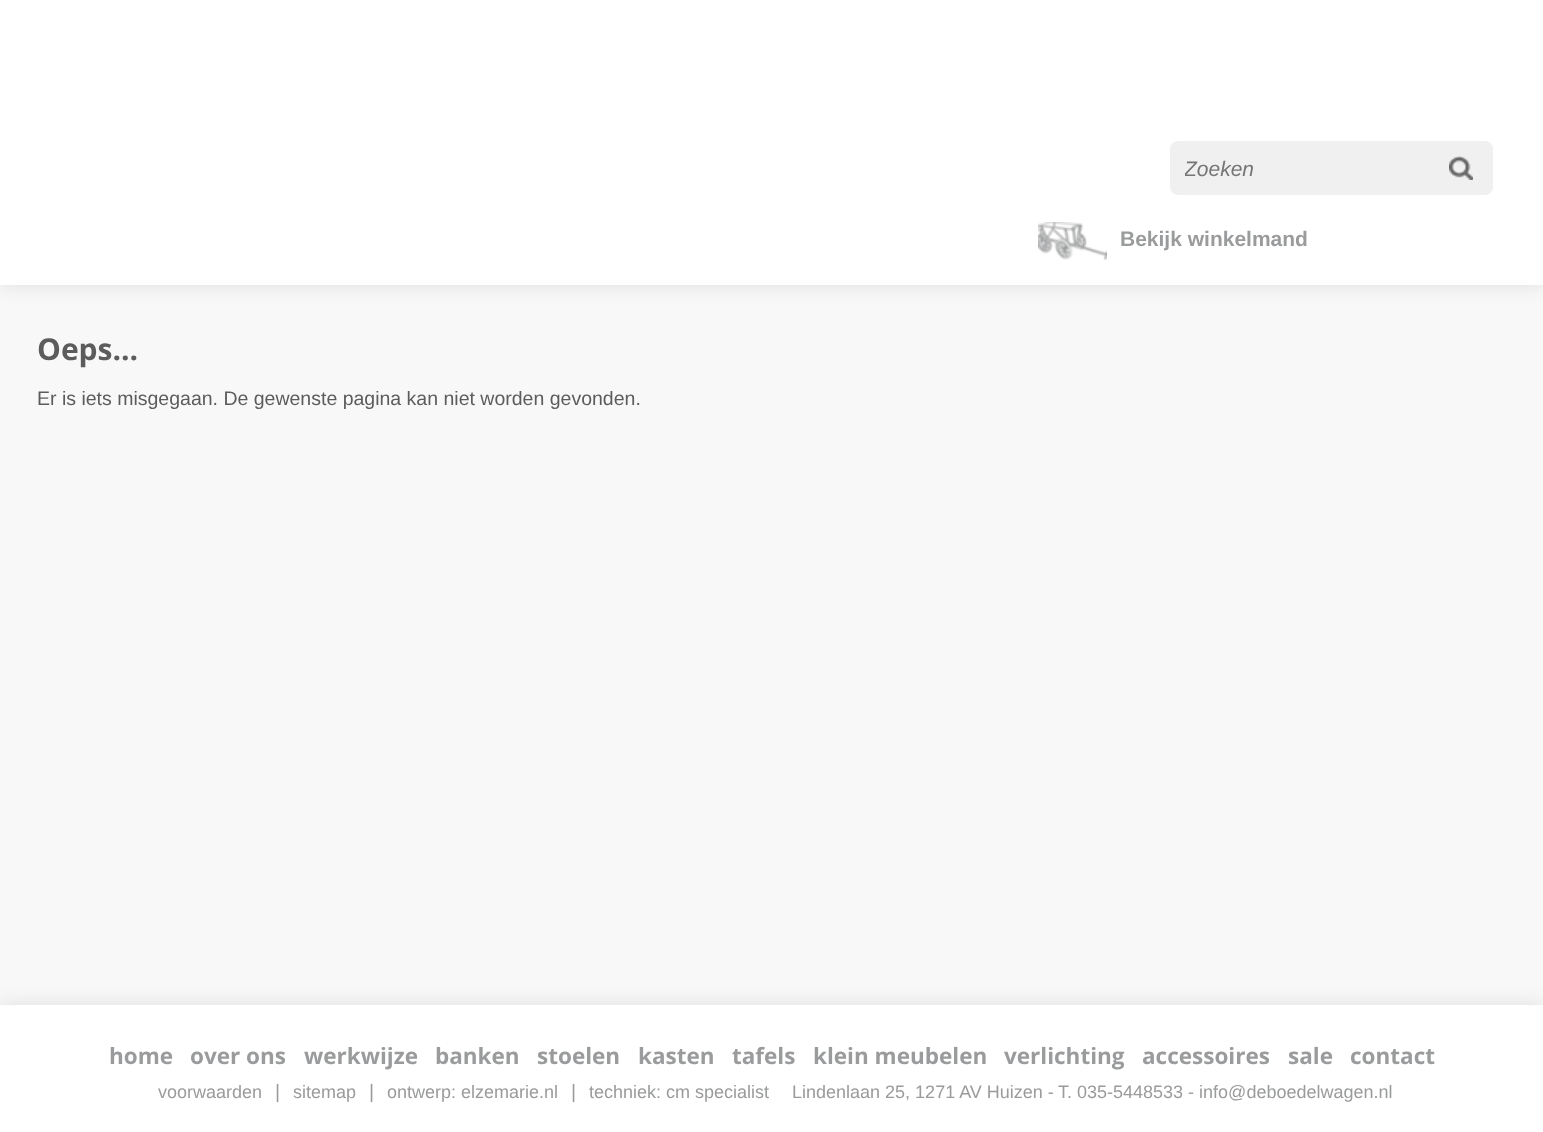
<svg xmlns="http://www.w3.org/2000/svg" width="1543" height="1132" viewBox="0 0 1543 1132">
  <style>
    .t1 { font: italic 21px Liberation Sans; fill: #757575; }
    .t2 { font: bold 21px Liberation Sans; fill: #9a9b9c; }
    .t3 { font: bold 30px Open Sans; fill: #5c5c5c; }
    .t4 { font: 19.5px Liberation Sans; fill: #5c5c5c; }
    .t5 { font: bold 22.5px Open Sans; fill: #9a9b9c; }
    .t6 { font: 18px Liberation Sans; fill: #9a9b9c; }
    .t7 { font: 19.5px Liberation Sans; fill: #9a9b9c; }
  </style>
  <defs>
    <clipPath id="clip1"><rect x="1185" y="156" width="248" height="24"/></clipPath>
  </defs>
  <rect width="100%" height="100%" fill="#f8f8f8"/>
  <rect x="0" y="0" width="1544" height="285" fill="#0000001a" filter="blur(10px)"/>
  <rect x="0" y="0" width="1543" height="285" fill="#fff"/>
  <rect x="1170" y="141" width="323" height="54" rx="8" fill="#f0f0f0"/>
  <g clip-path="url(#clip1)">
    <text x="1184" y="176" class="t1">Zoeken</text>
  </g>
  <image x="1449" y="156" width="24" height="24" href="images/1.png"/>
  <image x="1038" y="222" width="69" height="38" href="images/2.png"/>
  <text x="1120" y="246" class="t2">Bekijk winkelmand</text>
  <text x="37" y="360" class="t3">Oeps...</text>
  <text x="37" y="405" class="t4">Er is iets misgegaan. De gewenste pagina kan niet worden gevonden.</text>
  <rect x="0" y="1005" width="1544" height="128" fill="#0000001a" filter="blur(10px)"/>
  <rect x="0" y="1005" width="1543" height="127" fill="#fff"/>
  <text x="109" y="1064" class="t5">home</text>
  <text x="190" y="1064" class="t5">over ons</text>
  <text x="304" y="1064" class="t5">werkwijze</text>
  <text x="435" y="1064" class="t5">banken</text>
  <text x="537" y="1064" class="t5">stoelen</text>
  <text x="638" y="1064" class="t5">kasten</text>
  <text x="732" y="1064" class="t5">tafels</text>
  <text x="813" y="1064" class="t5">klein meubelen</text>
  <text x="1004" y="1064" class="t5">verlichting</text>
  <text x="1142" y="1064" class="t5">accessoires</text>
  <text x="1288" y="1064" class="t5">sale</text>
  <text x="1350" y="1064" class="t5">contact</text>
  <text x="158" y="1098" class="t6">voorwaarden</text>
  <text x="275" y="1098" class="t7">|</text>
  <text x="293" y="1098" class="t6">sitemap</text>
  <text x="369" y="1098" class="t7">|</text>
  <text x="387" y="1098" class="t6">ontwerp: elzemarie.nl</text>
  <text x="571" y="1098" class="t7">|</text>
  <text x="589" y="1098" class="t6">techniek: cm specialist</text>
  <text x="792" y="1098" class="t6">Lindenlaan 25, 1271 AV Huizen -</text>
  <text x="1058" y="1098" class="t6">T. 035-5448533 - info@deboedelwagen.nl</text>
</svg>
